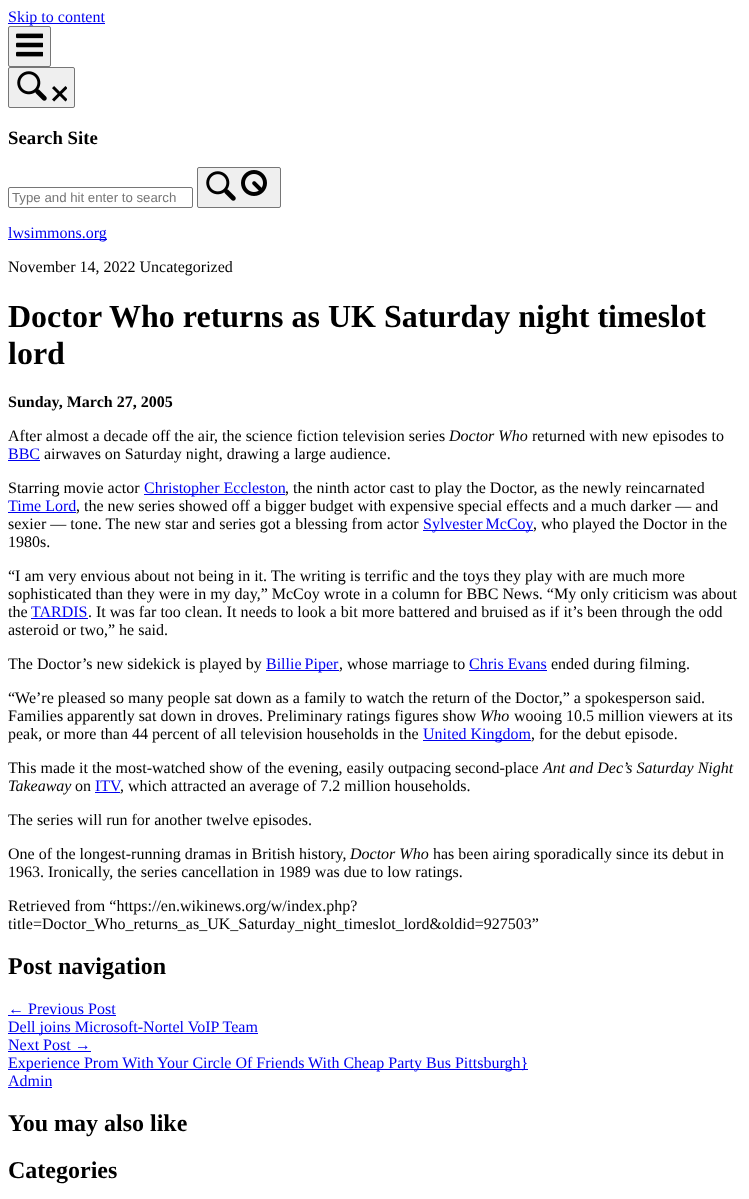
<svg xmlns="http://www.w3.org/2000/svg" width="749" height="1199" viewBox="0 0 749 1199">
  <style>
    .t1 { font: 16px Liberation Serif; fill: #00e; }
    .t2 { font: bold 18.75px Liberation Serif; fill: #000; }
    .t3 { font: 13.25px Liberation Sans; fill: #757575; }
    .t4 { font: 16px Liberation Serif; fill: #000; }
    .t5 { font: bold 32px Liberation Serif; fill: #000; }
    .t6 { font: bold 16px Liberation Serif; fill: #000; }
    .t7 { font: italic 16px Liberation Serif; fill: #000; }
    .t8 { font: bold 24px Liberation Serif; fill: #000; }
  </style>
  <defs>
    <clipPath id="clip1"><rect x="12" y="190" width="164" height="15"/></clipPath>
  </defs>
  <rect width="100%" height="100%" fill="#fff"/>
  <rect x="8" y="23" width="97" height="1" fill="#00e"/>
  <text x="8" y="22" class="t1">Skip to content</text>
  <rect x="8.5" y="26.5" width="42" height="40" rx="1.5" fill="#efefef" stroke="#767676"/>
  <image x="16" y="33" width="27" height="24" href="images/1.png"/>
  <rect x="8.5" y="67.5" width="66" height="40" rx="1.5" fill="#efefef" stroke="#767676"/>
  <image x="17" y="71" width="30" height="30" href="images/2.png"/>
  <image x="52" y="86" width="15" height="16" href="images/3.png"/>
  <text x="8" y="144" class="t2">Search Site</text>
  <rect x="8.5" y="187.5" width="184" height="20" rx="1.5" fill="none" stroke="#767676"/>
  <g clip-path="url(#clip1)">
    <text x="12" y="202" class="t3">Type and hit enter to search</text>
  </g>
  <rect x="197.5" y="167.5" width="83" height="40" rx="1.5" fill="#efefef" stroke="#767676"/>
  <image x="206" y="171" width="30" height="30" href="images/2.png"/>
  <image x="241" y="170" width="26" height="26" href="images/4.png"/>
  <rect x="8" y="239" width="99" height="1" fill="#00e"/>
  <text x="8" y="238" class="t1">lwsimmons.org</text>
  <text x="8" y="272" class="t4">November 14, 2022 Uncategorized</text>
  <text x="8" y="327" class="t5">Doctor Who returns as UK Saturday night timeslot</text>
  <text x="8" y="364" class="t5">lord</text>
  <text x="8" y="407" class="t6">Sunday, March 27, 2005</text>
  <text x="8" y="441" class="t4">After almost a decade off the air, the science fiction television series</text>
  <text x="449" y="441" class="t7">Doctor Who</text>
  <text x="532" y="441" class="t4">returned with new episodes to</text>
  <text x="8" y="459" class="t1">BBC</text>
  <rect x="8" y="460" width="32" height="1" fill="#00e"/>
  <text x="44" y="459" class="t4">airwaves on Saturday night, drawing a large audience.</text>
  <text x="8" y="493" class="t4">Starring movie actor</text>
  <rect x="144" y="494" width="141" height="1" fill="#00e"/>
  <text x="144" y="493" class="t1">Christopher Eccleston</text>
  <text x="285" y="493" class="t4">, the ninth actor cast to play the Doctor, as the newly reincarnated</text>
  <text x="8" y="511" class="t1">Time Lord</text>
  <rect x="8" y="512" width="68" height="1" fill="#00e"/>
  <text x="76" y="511" class="t4">, the new series showed off a bigger budget with expensive special effects and a much darker — and</text>
  <text x="8" y="529" class="t4">sexier — tone. The new star and series got a blessing from actor</text>
  <rect x="423" y="530" width="110" height="1" fill="#00e"/>
  <text x="423" y="529" word-spacing="-1" class="t1">Sylvester McCoy</text>
  <text x="533" y="529" class="t4">, who played the Doctor in the</text>
  <text x="8" y="547" class="t4">1980s.</text>
  <text x="8" y="581" class="t4">“I am very envious about not being in it. The writing is terrific and the toys they play with are much more</text>
  <text x="8" y="599" class="t4">sophisticated than they were in my day,” McCoy wrote in a column for BBC News. “My only criticism was about</text>
  <text x="8" y="617" class="t4">the</text>
  <text x="31" y="617" class="t1">TARDIS</text>
  <rect x="31" y="618" width="57" height="1" fill="#00e"/>
  <text x="88" y="617" class="t4">. It was far too clean. It needs to look a bit more battered and bruised as if it’s been through the odd</text>
  <text x="8" y="635" class="t4">asteroid or two,” he said.</text>
  <text x="8" y="669" class="t4">The Doctor’s new sidekick is played by</text>
  <rect x="266" y="670" width="73" height="1" fill="#00e"/>
  <text x="266" y="669" word-spacing="-1" class="t1">Billie Piper</text>
  <text x="339" y="669" class="t4">, whose marriage to</text>
  <text x="469" y="669" class="t1">Chris Evans</text>
  <rect x="469" y="670" width="78" height="1" fill="#00e"/>
  <text x="551" y="669" class="t4">ended during filming.</text>
  <text x="8" y="703" class="t4">“We’re pleased so many people sat down as a family to watch the return of the Doctor,” a spokesperson said.</text>
  <text x="8" y="721" class="t4">Families apparently sat down in droves. Preliminary ratings figures show</text>
  <text x="480" y="721" class="t7">Who</text>
  <text x="514" y="721" class="t4">wooing 10.5 million viewers at its</text>
  <text x="8" y="739" class="t4">peak, or more than 44 percent of all television households in the</text>
  <rect x="423" y="740" width="108" height="1" fill="#00e"/>
  <text x="423" y="739" class="t1">United Kingdom</text>
  <text x="531" y="739" class="t4">, for the debut episode.</text>
  <text x="8" y="773" class="t4">This made it the most-watched show of the evening, easily outpacing second-place</text>
  <text x="543" y="773" class="t7">Ant and Dec’s Saturday Night</text>
  <text x="8" y="791" class="t7">Takeaway</text>
  <text x="75" y="791" class="t4">on</text>
  <text x="95" y="791" class="t1">ITV</text>
  <rect x="95" y="792" width="25" height="1" fill="#00e"/>
  <text x="120" y="791" class="t4">, which attracted an average of 7.2 million households.</text>
  <text x="8" y="825" class="t4">The series will run for another twelve episodes.</text>
  <text x="8" y="859" class="t4">One of the longest-running dramas in British history,</text>
  <text x="350" y="859" class="t7">Doctor Who</text>
  <text x="433" y="859" class="t4">has been airing sporadically since its debut in</text>
  <text x="8" y="877" class="t4">1963. Ironically, the series cancellation in 1989 was due to low ratings.</text>
  <text x="8" y="911" class="t4">Retrieved from “https://en.wikinews.org/w/index.php?</text>
  <text x="8" y="929" class="t4">title=Doctor_Who_returns_as_UK_Saturday_night_timeslot_lord&amp;oldid=927503”</text>
  <text x="8" y="974" class="t8">Post navigation</text>
  <text x="8" y="1014" class="t1">← Previous Post</text>
  <rect x="8" y="1015" width="108" height="1" fill="#00e"/>
  <rect x="8" y="1033" width="250" height="1" fill="#00e"/>
  <text x="8" y="1032" class="t1">Dell joins Microsoft-Nortel VoIP Team</text>
  <text x="8" y="1050" class="t1">Next Post →</text>
  <rect x="8" y="1051" width="83" height="1" fill="#00e"/>
  <rect x="8" y="1069" width="520" height="1" fill="#00e"/>
  <text x="8" y="1068" class="t1">Experience Prom With Your Circle Of Friends With Cheap Party Bus Pittsburgh}</text>
  <text x="8" y="1086" class="t1">Admin</text>
  <rect x="8" y="1087" width="44" height="1" fill="#00e"/>
  <text x="8" y="1131" class="t8">You may also like</text>
  <text x="8" y="1178" class="t8">Categories</text>
</svg>
